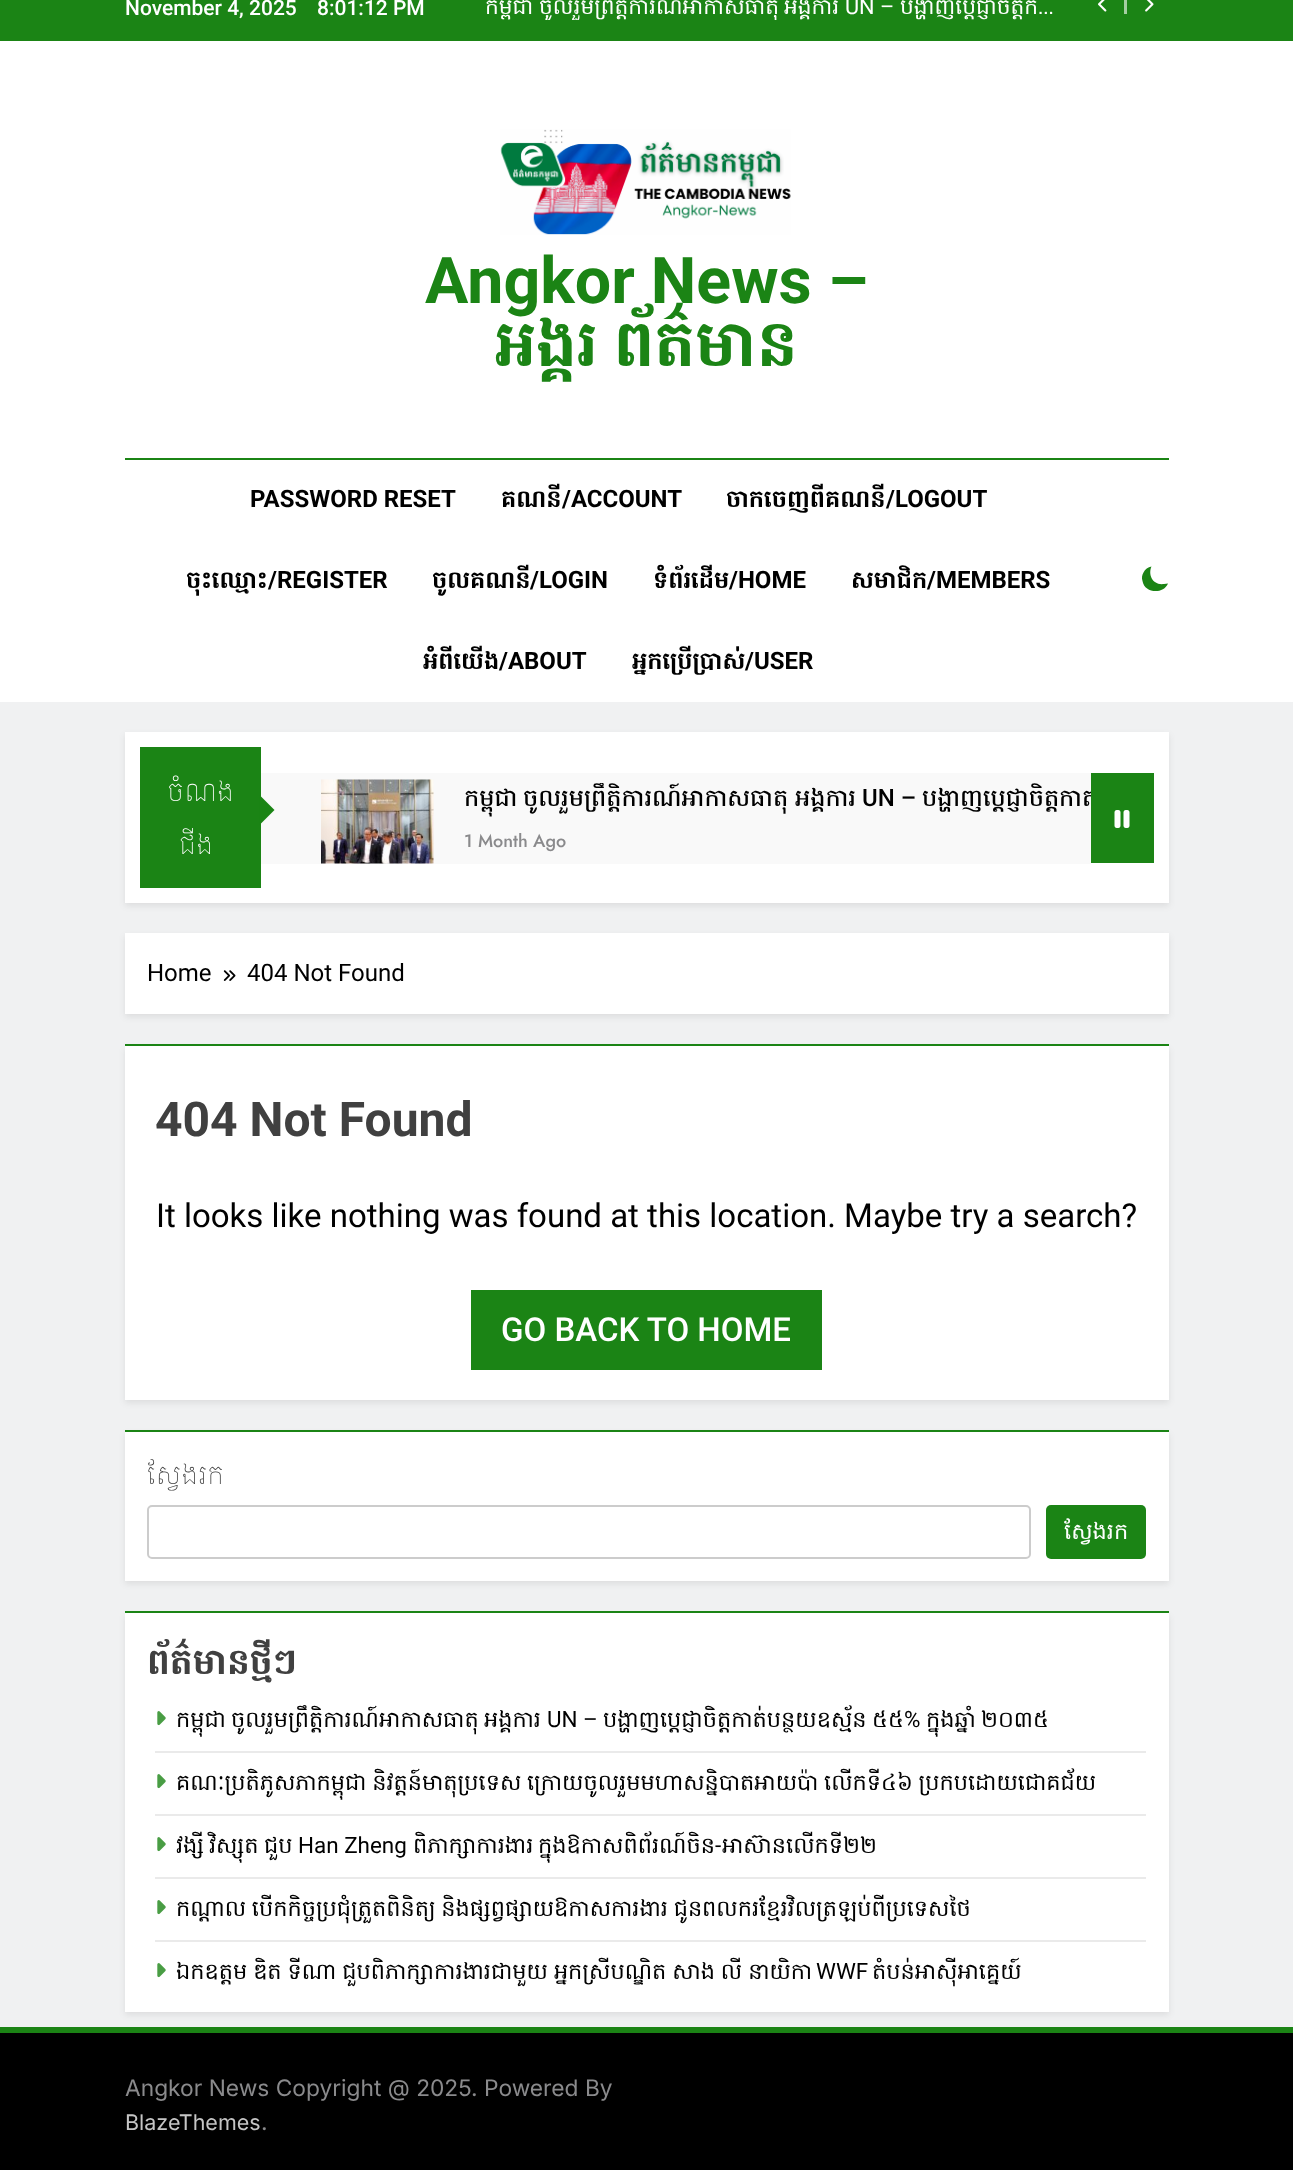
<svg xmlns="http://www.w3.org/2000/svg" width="1293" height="2170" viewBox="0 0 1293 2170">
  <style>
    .t1 { font: 500 21px Roboto; fill: #fff; }
    .t2 { font: 21.75px Hanuman; fill: #fff; }
    .t3 { font: 21.75px Roboto; fill: #fff; }
    .t4 { font: bold 64.5px Roboto; fill: #1b8415; }
    .t5 { font: bold 64.5px Hanuman; fill: #1b8415; }
    .t6 { font: bold 24px Roboto; fill: #000; }
    .t7 { font: bold 24px Hanuman; fill: #000; }
    .t8 { font: 100 27px Hanuman; fill: #fff; }
    .t9 { font: 500 24px Hanuman; fill: #000; }
    .t10 { font: 500 24px Roboto; fill: #000; }
    .t11 { font: 500 18px Jost; fill: #8a8a8c; }
    .t12 { font: 24px Roboto; fill: #000; }
    .t13 { font: bold 48px Roboto; fill: #404040; }
    .t14 { font: 33px Roboto; fill: #000; }
    .t15 { font: 500 33px Roboto; fill: #fff; }
    .t16 { font: 100 27px Hanuman; fill: #404040; }
    .t17 { font: 22.5px Hanuman; fill: #fff; }
    .t18 { font: bold 36px Hanuman; fill: #404040; }
    .t19 { font: 22.45px Hanuman; fill: #000; }
    .t20 { font: 22.45px Roboto; fill: #000; }
    .t21 { font: 22.75px Inter; fill: #8a8a8c; }
    .t22 { font: 21.5px Inter; fill: #c5c5c5; }
  </style>
  <defs>
    <clipPath id="clip1"><rect x="440" y="0" width="619" height="20"/></clipPath>
    <clipPath id="clip2"><rect x="464" y="783" width="627" height="36"/></clipPath>
  </defs>
  <rect width="100%" height="100%" fill="#f0f1f2"/>
  <rect x="0" y="0" width="1293" height="41" fill="#1b8415"/>
  <text x="125" y="15" class="t1">November 4, 2025</text>
  <text x="317" y="15" class="t1">8:01:12 PM</text>
  <g clip-path="url(#clip1)">
    <text x="485" y="14" class="t2">កម្ពុជា</text>
    <text x="539" y="14" class="t2">ចូលរួមព្រឹត្តិការណ៍អាកាសធាតុ</text>
  </g>
  <text x="784" y="14" class="t2">អង្គការ</text>
  <text x="845" y="14" class="t3">UN –</text>
  <text x="900" y="14" class="t2">បង្ហាញប្តេជ្ញាចិត្តក...</text>
  <image x="1098" y="0" width="9" height="12" href="images/1.png"/>
  <rect x="1124" y="0" width="3" height="14" fill="#a4cea1"/>
  <image x="1145" y="0" width="9" height="12" href="images/2.png"/>
  <rect x="0" y="41" width="1293" height="661" fill="#fff"/>
  <image x="500" y="129" width="291" height="106" href="images/3.png"/>
  <text x="425" y="303" class="t4">Angkor News –</text>
  <text x="495" y="366" word-spacing="-6" class="t5">អង្គរ ព័ត៌មាន</text>
  <rect x="125" y="458" width="1044" height="2" fill="#1b8415"/>
  <text x="250" y="507" class="t6">PASSWORD RESET</text>
  <text x="501" y="507" class="t7">គណនី</text>
  <text x="562" y="507" class="t6">/ACCOUNT</text>
  <text x="726" y="507" class="t7">ចាកចេញពីគណនី</text>
  <text x="886" y="507" class="t6">/LOGOUT</text>
  <text x="186" y="588" class="t7">ចុះឈ្មោះ</text>
  <text x="268" y="588" class="t6">/REGISTER</text>
  <text x="432" y="588" class="t7">ចូលគណនី</text>
  <text x="530" y="588" class="t6">/LOGIN</text>
  <text x="653" y="588" class="t7">ទំព័រដើម</text>
  <text x="729" y="588" class="t6">/HOME</text>
  <text x="851" y="588" class="t7">សមាជិក</text>
  <text x="927" y="588" class="t6">/MEMBERS</text>
  <text x="423" y="669" class="t7">អំពីយើង</text>
  <text x="499" y="669" class="t6">/ABOUT</text>
  <text x="632" y="669" class="t7">អ្នកប្រើប្រាស់</text>
  <text x="745" y="669" class="t6">/USER</text>
  <path d="M1168 583.5L1164 584C1152 585.5 1148 574 1151.5 566.5C1148 567 1145 569.5 1143.5 572.5C1142 575 1141.5 578 1142.5 581C1144.5 593.5 1163.5 594.5 1168 583.5Z" fill="#1b8415"/>
  <rect x="125" y="735" width="1044" height="171" fill="#00000014" filter="blur(3px)"/>
  <rect x="125" y="732" width="1044" height="171" fill="#fff"/>
  <rect x="140" y="747" width="121" height="141" fill="#1b8415"/>
  <text x="167" y="801" class="t8">ចំណង</text>
  <rect x="261" y="773" width="830" height="91" fill="#f9f9f9"/>
  <path d="M259.5 825V795L274.5 810Z" fill="#1b8415"/>
  <text x="179" y="854" class="t8">ជើង</text>
  <image x="321" y="779" width="113" height="85" href="images/4.png"/>
  <text x="464" y="806" class="t9">កម្ពុជា</text>
  <g clip-path="url(#clip2)">
    <text x="523" y="806" class="t9">ចូលរួមព្រឹត្តិការណ៍អាកាសធាតុ</text>
  </g>
  <text x="795" y="806" class="t9">អង្គការ</text>
  <text x="862" y="806" class="t10">UN –</text>
  <g clip-path="url(#clip2)">
    <text x="922" y="806" class="t9">បង្ហាញប្តេជ្ញាចិត្តកាត</text>
  </g>
  <text x="464" y="847" class="t11">1 Month Ago</text>
  <rect x="1091" y="773" width="63" height="90" fill="#1b8415"/>
  <image x="1114" y="810" width="16" height="18" href="images/5.png"/>
  <rect x="125" y="936" width="1044" height="81" fill="#00000014" filter="blur(3px)"/>
  <rect x="125" y="933" width="1044" height="81" fill="#fff"/>
  <text x="147" y="981" class="t12">Home</text>
  <image x="223" y="970" width="13" height="11" href="images/6.png"/>
  <text x="247" y="981" class="t12">404 Not Found</text>
  <rect x="125" y="1049" width="1044" height="354" fill="#00000014" filter="blur(3px)"/>
  <rect x="125" y="1046" width="1044" height="354" fill="#fff"/>
  <rect x="125" y="1044" width="1044" height="2" fill="#1b8415"/>
  <text x="155" y="1136" class="t13">404 Not Found</text>
  <text x="156" y="1227" class="t14">It looks like nothing was found at this location. Maybe try a search?</text>
  <rect x="471" y="1290" width="351" height="80" fill="#1b8415"/>
  <text x="501" y="1341" class="t15">GO BACK TO HOME</text>
  <rect x="125" y="1434" width="1044" height="150" fill="#00000014" filter="blur(3px)"/>
  <rect x="125" y="1432" width="1044" height="149" fill="#fff"/>
  <rect x="125" y="1430" width="1044" height="2" fill="#1b8415"/>
  <text x="147" y="1484" class="t16">ស្វែងរក</text>
  <rect x="148" y="1506" width="882" height="52" rx="4" fill="none" stroke="#ccc" stroke-width="2"/>
  <rect x="1046" y="1505" width="100" height="54" rx="5" fill="#1b8415"/>
  <text x="1064" y="1539" class="t17">ស្វែងរក</text>
  <rect x="125" y="1616" width="1044" height="399" fill="#00000014" filter="blur(3px)"/>
  <rect x="125" y="1613" width="1044" height="399" fill="#fff"/>
  <rect x="125" y="1611" width="1044" height="2" fill="#1b8415"/>
  <text x="147" y="1674" class="t18">ព័ត៌មានថ្មីៗ</text>
  <rect x="155" y="1751" width="991" height="2" fill="#eaeaea"/>
  <image x="157" y="1711" width="9" height="15" href="images/7.png"/>
  <text x="176" y="1727" class="t19">កម្ពុជា</text>
  <text x="231" y="1727" class="t19">ចូលរួមព្រឹត្តិការណ៍អាកាសធាតុ</text>
  <text x="484" y="1727" class="t19">អង្គការ</text>
  <text x="547" y="1727" class="t20">UN –</text>
  <text x="603" y="1727" class="t19">បង្ហាញប្តេជ្ញាចិត្តកាត់បន្ថយឧស្ម័ន</text>
  <text x="872" y="1727" class="t19">៥៥</text>
  <text x="904" y="1727" class="t20">%</text>
  <text x="926" y="1727" class="t19">ក្នុងឆ្នាំ</text>
  <text x="981" y="1727" class="t19">២០៣៥</text>
  <rect x="155" y="1814" width="991" height="2" fill="#eaeaea"/>
  <image x="157" y="1774" width="9" height="15" href="images/7.png"/>
  <text x="176" y="1790" word-spacing="-2" class="t19">គណៈប្រតិភូសភាកម្ពុជា និវត្តន៍មាតុប្រទេស ក្រោយចូលរួមមហាសន្និបាតអាយប៉ា លើកទី៤៦ ប្រកបដោយជោគជ័យ</text>
  <rect x="155" y="1877" width="991" height="2" fill="#eaeaea"/>
  <image x="157" y="1837" width="9" height="15" href="images/7.png"/>
  <text x="176" y="1853" class="t19">វង្សី</text>
  <text x="209" y="1853" class="t19">វិស្សុត</text>
  <text x="264" y="1853" class="t19">ជួប</text>
  <text x="298" y="1853" class="t20">Han Zheng</text>
  <text x="413" y="1853" class="t19">ពិភាក្សាការងារ</text>
  <text x="538" y="1853" class="t19">ក្នុងឱកាសពិព័រណ៍ចិន</text>
  <text x="715" y="1853" class="t20">-</text>
  <text x="722" y="1853" class="t19">អាស៊ានលើកទី២២</text>
  <rect x="155" y="1940" width="991" height="2" fill="#eaeaea"/>
  <image x="157" y="1900" width="9" height="15" href="images/7.png"/>
  <text x="176" y="1916" word-spacing="-2" class="t19">កណ្តាល បើកកិច្ចប្រជុំត្រួតពិនិត្យ និងផ្សព្វផ្សាយឱកាសការងារ ជូនពលករខ្មែរវិលត្រឡប់ពីប្រទេសថៃ</text>
  <image x="157" y="1963" width="9" height="15" href="images/7.png"/>
  <text x="176" y="1979" word-spacing="-1.75" class="t19">ឯកឧត្តម ឌិត ទីណា ជួបពិភាក្សាការងារជាមួយ អ្នកស្រីបណ្ឌិត សាង លី នាយិកា</text>
  <text x="816" y="1979" class="t20">WWF</text>
  <text x="872" y="1979" class="t19">តំបន់អាស៊ីអាគ្នេយ៍</text>
  <rect x="0" y="2027" width="1293" height="6" fill="#1b8415"/>
  <rect x="0" y="2033" width="1293" height="137" fill="#000"/>
  <text x="125" y="2096" class="t21">Angkor News Copyright @ 2025.</text>
  <text x="484" y="2096" class="t21">Powered By</text>
  <text x="125" y="2130" class="t22">BlazeThemes</text>
  <text x="261" y="2130" class="t21">.</text>
</svg>
